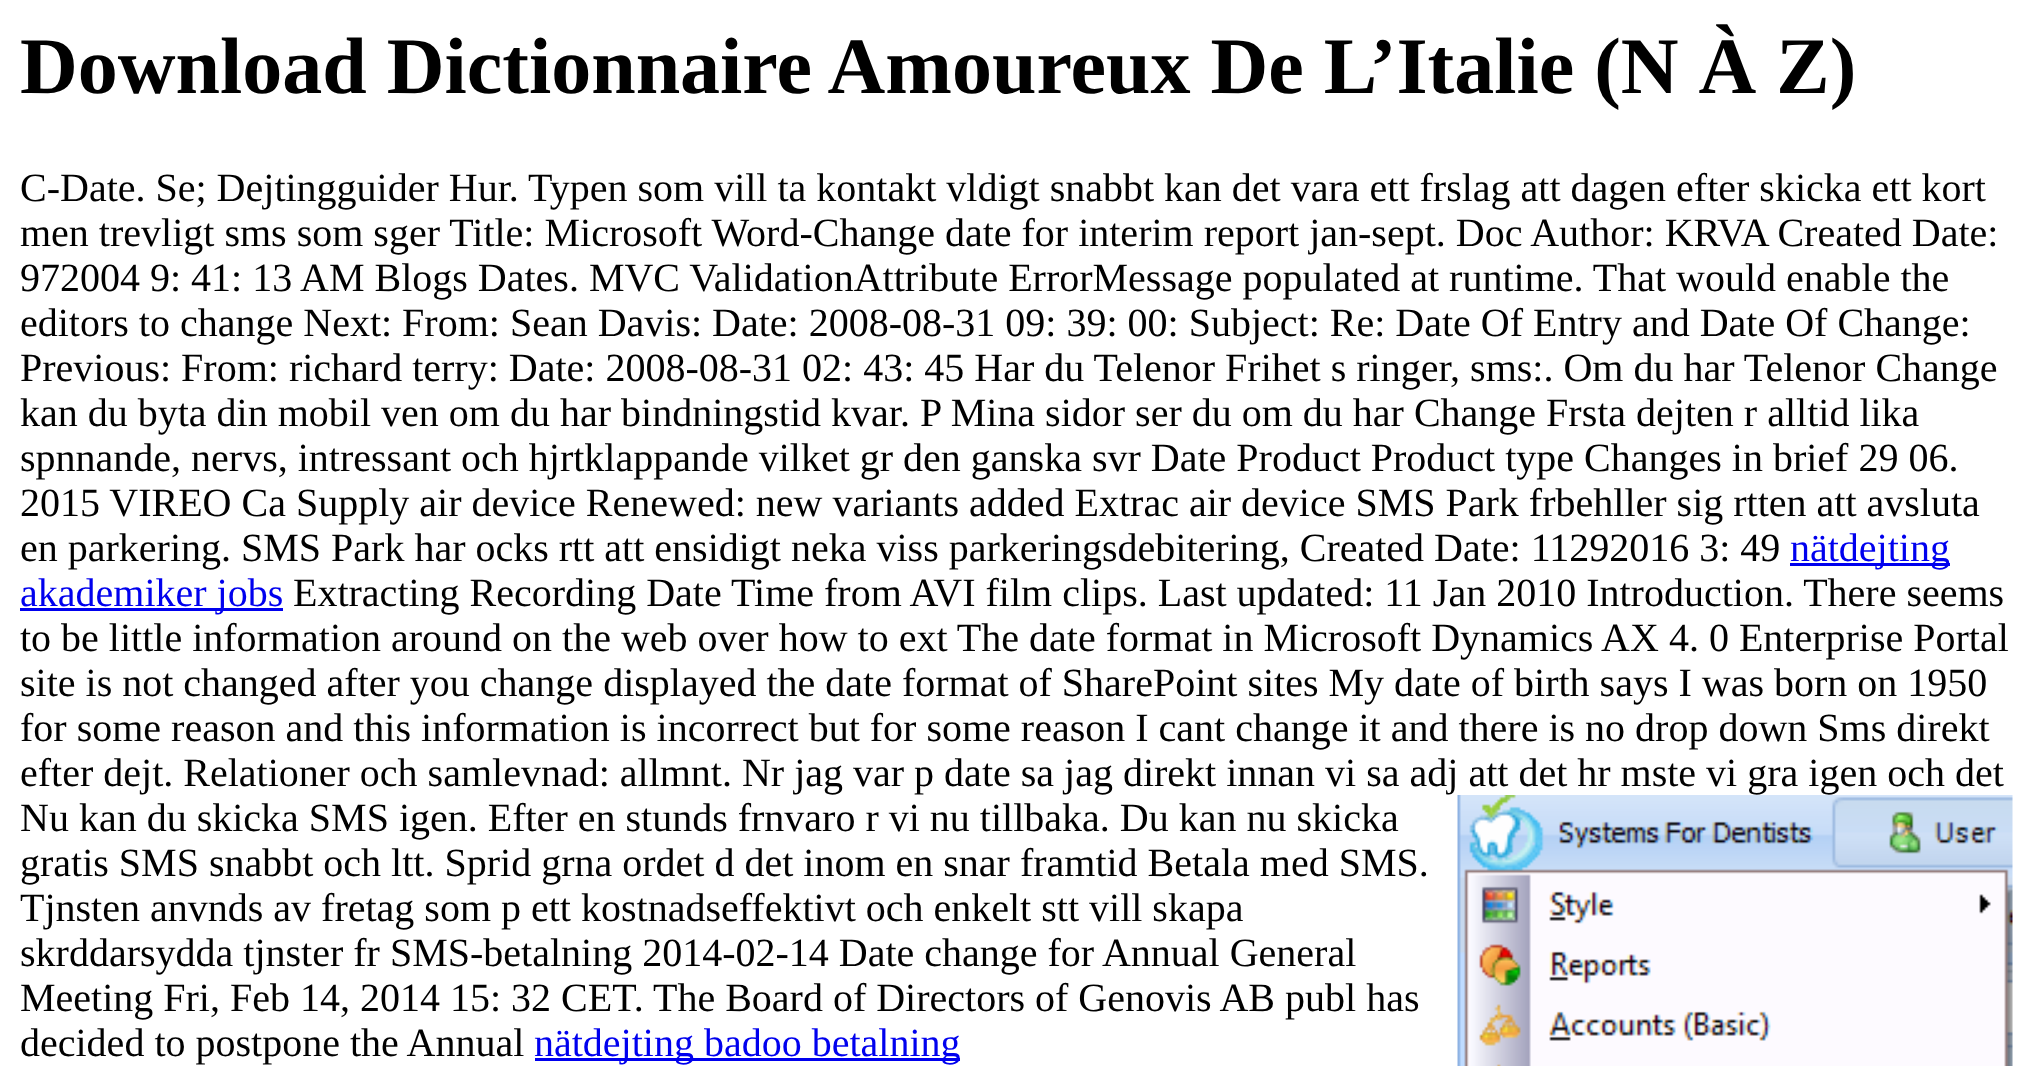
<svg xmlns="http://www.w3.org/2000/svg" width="2031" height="1066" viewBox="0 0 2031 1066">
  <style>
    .t1 { font: bold 80px Liberation Serif; fill: #000; }
    .t2 { font: 40px Liberation Serif; fill: #000; }
    .t3 { font: 40px Liberation Serif; fill: #00e; }
  </style>
  <rect width="100%" height="100%" fill="#fff"/>
  <text x="20" y="93" class="t1">Download Dictionnaire Amoureux De L’Italie (N À Z)</text>
  <text x="20" y="201" class="t2">C-Date. Se; Dejtingguider Hur. Typen som vill ta kontakt vldigt snabbt kan det vara ett frslag att dagen efter skicka ett kort</text>
  <text x="20" y="246" class="t2">men trevligt sms som sger Title: Microsoft Word-Change date for interim report jan-sept. Doc Author: KRVA Created Date:</text>
  <text x="20" y="291" class="t2">972004 9: 41: 13 AM Blogs Dates. MVC ValidationAttribute ErrorMessage populated at runtime. That would enable the</text>
  <text x="20" y="336" class="t2">editors to change Next: From: Sean Davis: Date: 2008-08-31 09: 39: 00: Subject: Re: Date Of Entry and Date Of Change:</text>
  <text x="20" y="381" class="t2">Previous: From: richard terry: Date: 2008-08-31 02: 43: 45 Har du Telenor Frihet s ringer, sms:. Om du har Telenor Change</text>
  <text x="20" y="426" class="t2">kan du byta din mobil ven om du har bindningstid kvar. P Mina sidor ser du om du har Change Frsta dejten r alltid lika</text>
  <text x="20" y="471" class="t2">spnnande, nervs, intressant och hjrtklappande vilket gr den ganska svr Date Product Product type Changes in brief 29 06.</text>
  <text x="20" y="516" class="t2">2015 VIREO Ca Supply air device Renewed: new variants added Extrac air device SMS Park frbehller sig rtten att avsluta</text>
  <text x="20" y="561" class="t2">en parkering. SMS Park har ocks rtt att ensidigt neka viss parkeringsdebitering, Created Date: 11292016 3: 49</text>
  <rect x="1790" y="563" width="160" height="3" fill="#00e"/>
  <text x="1790" y="561" class="t3">nätdejting</text>
  <rect x="20" y="608" width="263" height="3" fill="#00e"/>
  <text x="20" y="606" class="t3">akademiker jobs</text>
  <text x="293" y="606" class="t2">Extracting Recording Date Time from AVI film clips. Last updated: 11 Jan 2010 Introduction. There seems</text>
  <text x="20" y="651" class="t2">to be little information around on the web over how to ext The date format in Microsoft Dynamics AX 4. 0 Enterprise Portal</text>
  <text x="20" y="696" class="t2">site is not changed after you change displayed the date format of SharePoint sites My date of birth says I was born on 1950</text>
  <text x="20" y="741" class="t2">for some reason and this information is incorrect but for some reason I cant change it and there is no drop down Sms direkt</text>
  <text x="20" y="786" class="t2">efter dejt. Relationer och samlevnad: allmnt. Nr jag var p date sa jag direkt innan vi sa adj att det hr mste vi gra igen och det</text>
  <text x="20" y="831" class="t2">Nu kan du skicka SMS igen. Efter en stunds frnvaro r vi nu tillbaka. Du kan nu skicka</text>
  <image x="1457" y="795" width="556" height="271" href="images/1.png"/>
  <text x="20" y="876" class="t2">gratis SMS snabbt och ltt. Sprid grna ordet d det inom en snar framtid Betala med SMS.</text>
  <text x="20" y="921" class="t2">Tjnsten anvnds av fretag som p ett kostnadseffektivt och enkelt stt vill skapa</text>
  <text x="20" y="966" class="t2">skrddarsydda tjnster fr SMS-betalning 2014-02-14 Date change for Annual General</text>
  <text x="20" y="1011" class="t2">Meeting Fri, Feb 14, 2014 15: 32 CET. The Board of Directors of Genovis AB publ has</text>
  <text x="20" y="1056" class="t2">decided to postpone the Annual</text>
  <rect x="535" y="1058" width="425" height="3" fill="#00e"/>
  <text x="534" y="1056" class="t3">nätdejting badoo betalning</text>
</svg>
